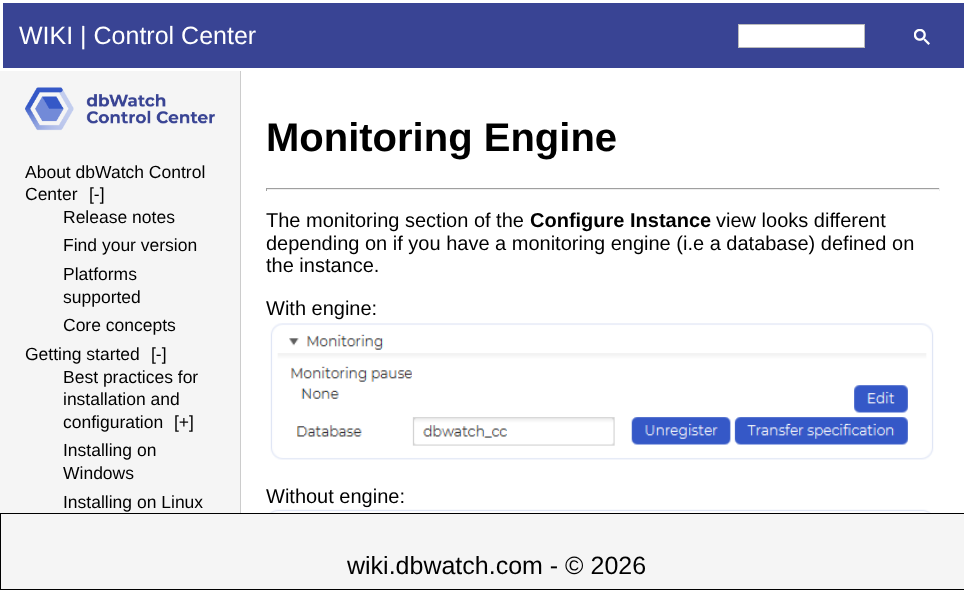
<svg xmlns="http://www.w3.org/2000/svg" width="964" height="590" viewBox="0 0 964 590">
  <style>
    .t1 { font: 25px Liberation Sans; fill: #fff; }
    .t2 { font: 17.5px Liberation Sans; fill: #000; }
    .t3 { font: bold 40px Liberation Sans; fill: #000; }
    .t4 { font: 20px Liberation Sans; fill: #000; }
    .t5 { font: bold 20px Liberation Sans; fill: #000; }
    .t6 { font: 25px Liberation Sans; fill: #000; }
  </style>
  <rect width="100%" height="100%" fill="#fff"/>
  <rect x="240" y="63" width="1" height="450" fill="#ccc"/>
  <rect x="1.5" y="1.5" width="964" height="68" fill="#394494" stroke="#fff" stroke-width="3"/>
  <text x="19" y="44" class="t1">WIKI | Control Center</text>
  <rect x="738.5" y="24.5" width="126" height="23" fill="#fff" stroke="#bbb"/>
  <image x="914" y="29" width="16" height="16" href="images/1.png"/>
  <rect x="0" y="71" width="240" height="442" fill="#f5f5f5"/>
  <image x="25" y="87" width="190" height="44" href="images/2.png"/>
  <text x="25" y="178" class="t2">About dbWatch Control</text>
  <text x="25" y="200" class="t2">Center</text>
  <text x="89" y="200" class="t2">[-]</text>
  <text x="63" y="223" class="t2">Release notes</text>
  <text x="63" y="251" class="t2">Find your version</text>
  <text x="63" y="280" class="t2">Platforms</text>
  <text x="63" y="303" class="t2">supported</text>
  <text x="63" y="331" class="t2">Core concepts</text>
  <text x="25" y="360" class="t2">Getting started</text>
  <text x="151" y="360" class="t2">[-]</text>
  <text x="63" y="383" class="t2">Best practices for</text>
  <text x="63" y="405" class="t2">installation and</text>
  <text x="63" y="428" class="t2">configuration</text>
  <text x="174" y="428" class="t2">[+]</text>
  <text x="63" y="456" class="t2">Installing on</text>
  <text x="63" y="479" class="t2">Windows</text>
  <text x="63" y="508" class="t2">Installing on Linux</text>
  <text x="266" y="151" class="t3">Monitoring Engine</text>
  <rect x="266" y="188" width="674" height="1" fill="#9f9f9f"/>
  <rect x="939" y="188" width="1" height="3" fill="#eee"/>
  <rect x="266" y="189" width="674" height="1" fill="#eee"/>
  <rect x="266" y="188" width="1" height="3" fill="#9f9f9f"/>
  <text x="266" y="227" class="t4">The monitoring section of the</text>
  <text x="530" y="227" class="t5">Configure Instance</text>
  <text x="716" y="227" class="t4">view looks different</text>
  <text x="266" y="250" class="t4">depending on if you have a monitoring engine (i.e a database) defined on</text>
  <text x="266" y="272" class="t4">the instance.</text>
  <text x="266" y="315" class="t4">With engine:</text>
  <image x="270" y="323" width="664" height="137" href="images/3.png"/>
  <text x="266" y="503" class="t4">Without engine:</text>
  <image x="266" y="507" width="669" height="6" href="images/4.png"/>
  <rect x="0.5" y="513.5" width="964" height="76" fill="#f5f5f5" stroke="#000"/>
  <text x="347" y="574" class="t6">wiki.dbwatch.com - © 2026</text>
</svg>
